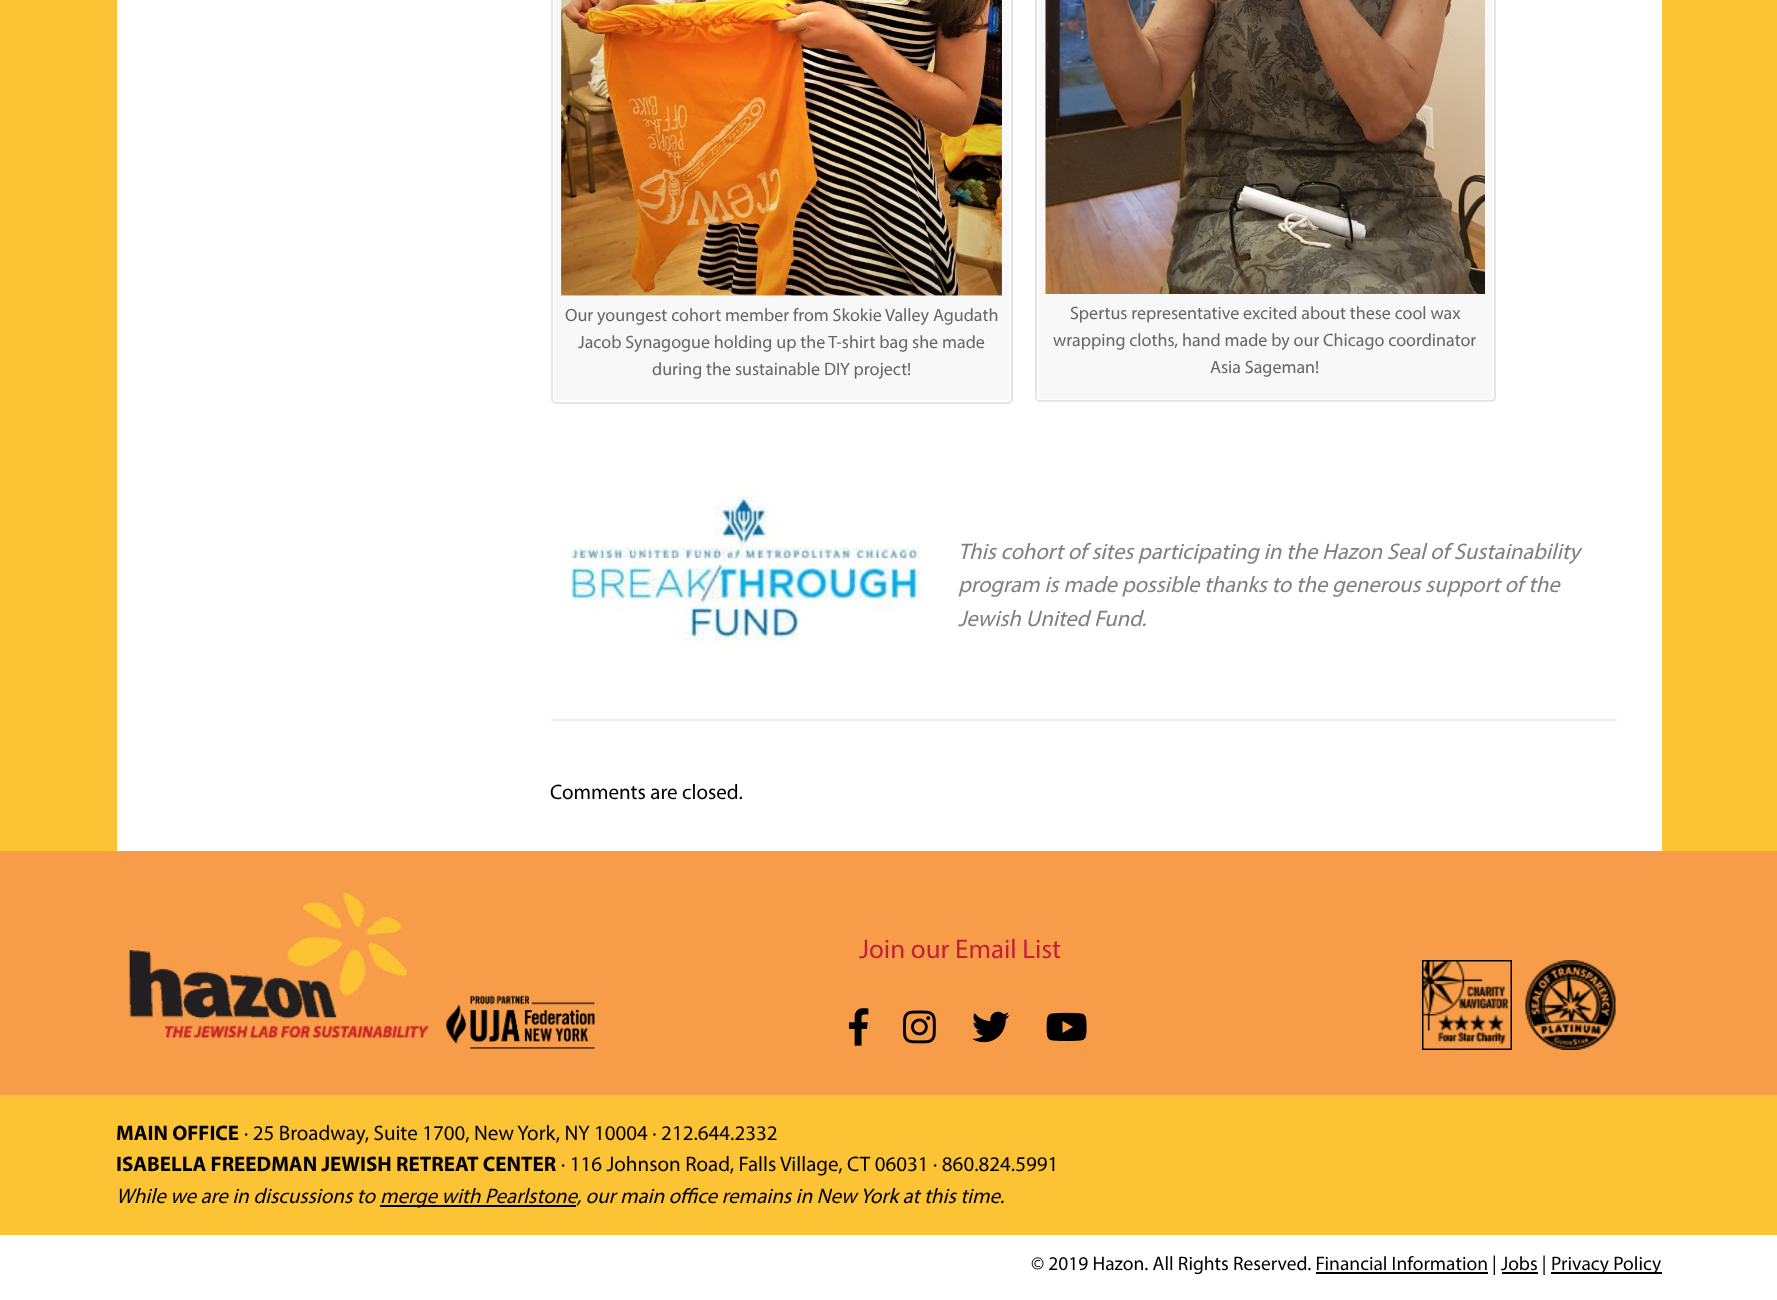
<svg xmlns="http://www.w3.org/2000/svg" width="1777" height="1300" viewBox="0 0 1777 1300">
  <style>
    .t1 { font: 18px Myriad; fill: #666; }
    .t2 { font: italic 22.5px Myriad; fill: #808080; }
    .t3 { font: 21px Myriad; fill: #000; }
    .t4 { font: 27px Myriad; fill: #c41e3a; }
    .t5 { font: bold 21px Myriad; fill: #000; }
    .t6 { font: italic 21px Myriad; fill: #000; }
    .t7 { font: 19.5px Myriad; fill: #000; }
  </style>
  <rect width="100%" height="100%" fill="#fcc334"/>
  <rect x="117" y="0" width="1545" height="851" fill="#fff"/>
  <rect x="551" y="-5" width="462" height="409" rx="5" fill="#f8f8f8"/>
  <rect x="553" y="-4" width="457" height="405" rx="2" fill="none" stroke="#fff" stroke-width="2"/>
  <rect x="552" y="-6" width="460" height="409" rx="4" fill="none" stroke="#e6e6e6" stroke-width="2"/>
  <image x="561" y="0" width="441" height="296" href="images/1.png"/>
  <text x="565" y="321" class="t1">Our youngest cohort member from Skokie Valley Agudath</text>
  <text x="578" y="348" class="t1">Jacob Synagogue holding up the T-shirt bag she made</text>
  <text x="652" y="375" class="t1">during the sustainable DIY project!</text>
  <rect x="1035" y="-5" width="461" height="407" rx="5" fill="#f8f8f8"/>
  <rect x="1038" y="-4" width="455" height="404" rx="2" fill="none" stroke="#fff" stroke-width="2"/>
  <rect x="1036" y="-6" width="459" height="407" rx="4" fill="none" stroke="#e6e6e6" stroke-width="2"/>
  <image x="1045" y="0" width="440" height="294" href="images/2.png"/>
  <text x="1070" y="319" class="t1">Spertus representative excited about these cool wax</text>
  <text x="1053" y="346" class="t1">wrapping cloths, hand made by our Chicago coordinator</text>
  <text x="1210" y="373" class="t1">Asia Sageman!</text>
  <image x="570" y="486" width="351" height="162" href="images/3.png"/>
  <text x="958" y="559" class="t2">This cohort of sites participating in the Hazon Seal of Sustainability</text>
  <text x="958" y="592" class="t2">program is made possible thanks to the generous support of the</text>
  <text x="958" y="626" class="t2">Jewish United Fund.</text>
  <rect x="551" y="719" width="1066" height="2" fill="#ededed"/>
  <text x="550" y="799" class="t3">Comments are closed.</text>
  <rect x="0" y="851" width="1777" height="244" fill="#f79d49"/>
  <image x="129" y="893" width="300" height="145" href="images/4.png"/>
  <image x="445" y="995" width="150" height="55" href="images/5.png"/>
  <text x="859" y="958" class="t4">Join our Email List</text>
  <image x="849" y="1008" width="20" height="38" href="images/6.png"/>
  <image x="903" y="1010" width="33" height="34" href="images/7.png"/>
  <image x="972" y="1011" width="38" height="32" href="images/8.png"/>
  <image x="1046" y="1012" width="41" height="29" href="images/9.png"/>
  <image x="1422" y="960" width="90" height="90" href="images/10.png"/>
  <image x="1525" y="960" width="91" height="90" href="images/11.png"/>
  <text x="116" y="1140" class="t5">MAIN OFFICE</text>
  <text x="244" y="1140" class="t3">· 25 Broadway, Suite 1700, New York, NY 10004 · 212.644.2332</text>
  <text x="116" y="1171" class="t5">ISABELLA FREEDMAN JEWISH RETREAT CENTER</text>
  <text x="561" y="1171" class="t3">· 116 Johnson Road, Falls Village, CT 06031 · 860.824.5991</text>
  <text x="116" y="1203" class="t6">While we are in discussions to</text>
  <rect x="380" y="1205" width="196" height="2" fill="#000"/>
  <text x="380" y="1203" class="t6">merge with Pearlstone, our main office remains in New York at this time.</text>
  <rect x="0" y="1235" width="1777" height="65" fill="#fff"/>
  <text x="1031" y="1270" class="t7">© 2019 Hazon. All Rights Reserved. Financial Information | Jobs |</text>
  <rect x="1551" y="1272" width="111" height="2" fill="#000"/>
  <text x="1551" y="1270" class="t7">Privacy Policy</text>
  <rect x="1316" y="1272" width="172" height="2" fill="#000"/>
  <rect x="1502" y="1272" width="36" height="2" fill="#000"/>
</svg>
